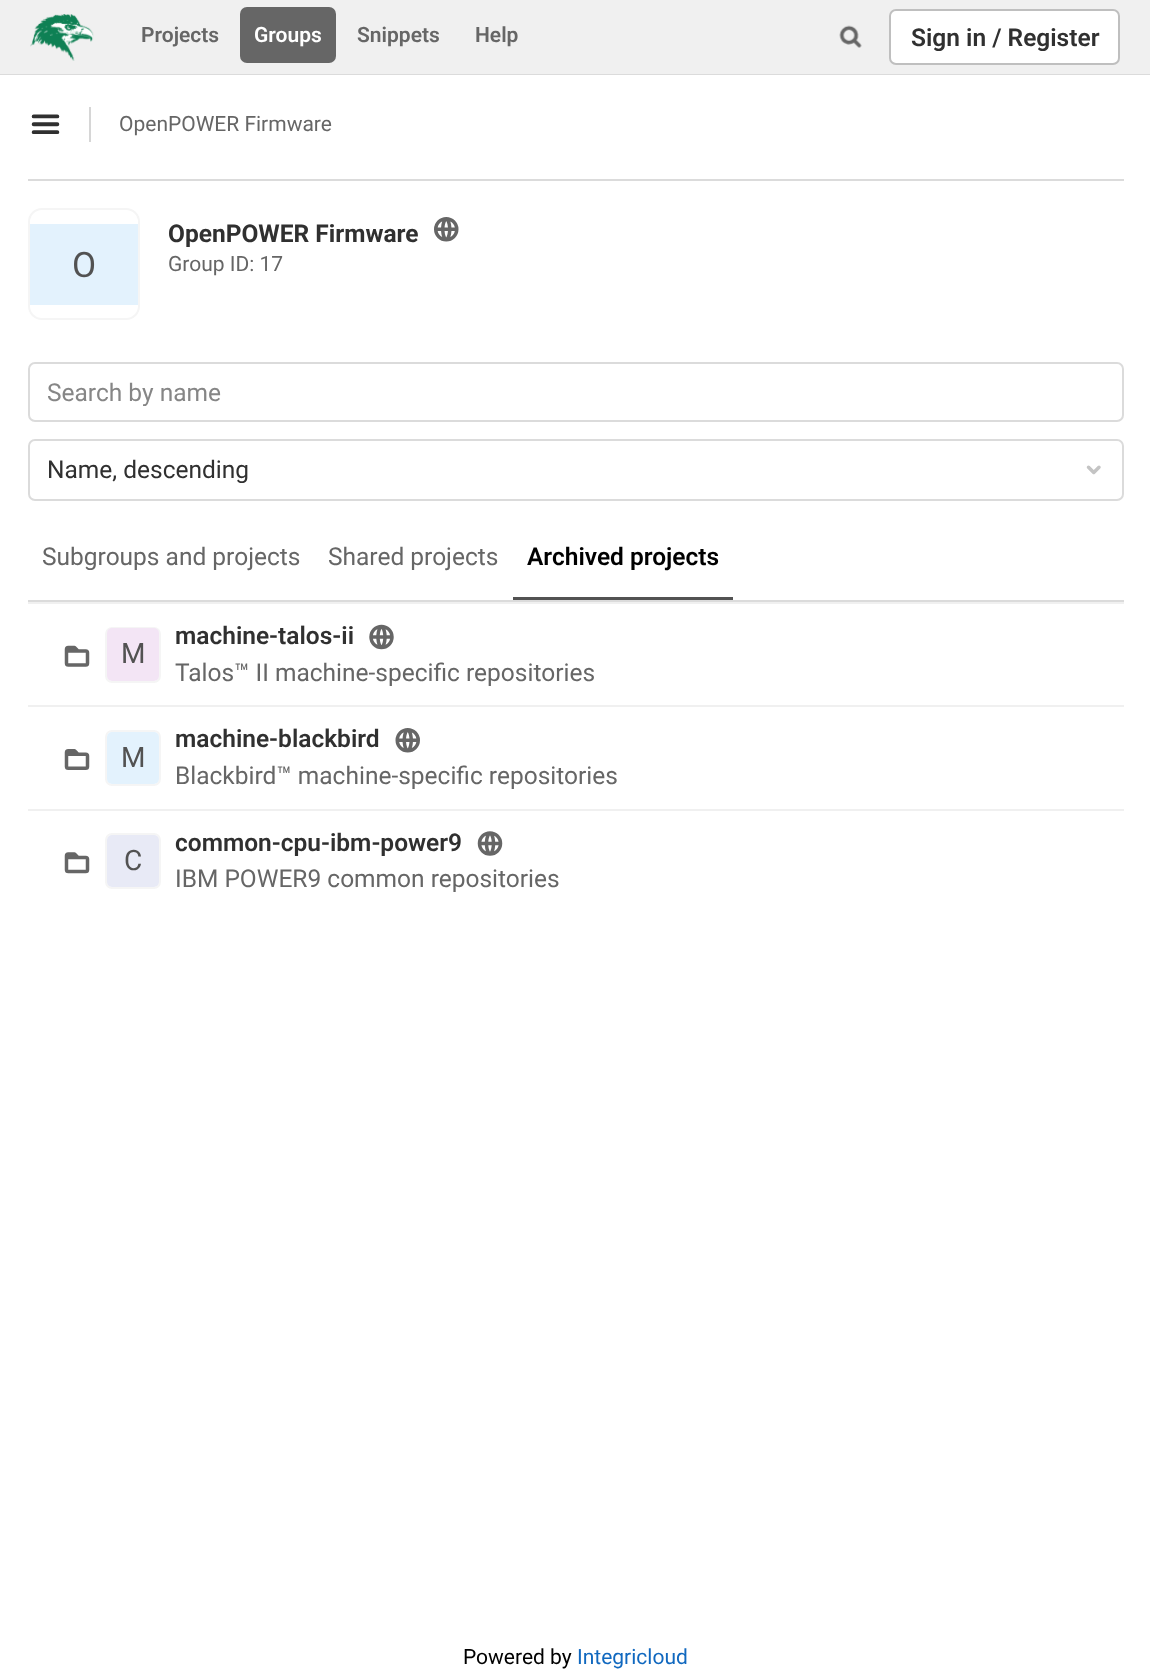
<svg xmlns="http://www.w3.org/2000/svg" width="1150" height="1670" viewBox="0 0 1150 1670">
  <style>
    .t1 { font: 600 21px Roboto; fill: #666; }
    .t2 { font: 600 21px Roboto; fill: #fff; }
    .t3 { font: 600 24.5px Roboto; fill: #303030; }
    .t4 { font: 21px Roboto; fill: #666; }
    .t5 { font: 35px Roboto; fill: #525252; }
    .t6 { font: bold 24.5px Roboto; fill: #303030; }
    .t7 { font: 24.5px Roboto; fill: #868686; }
    .t8 { font: 24.5px Roboto; fill: #303030; }
    .t9 { font: 24.5px Roboto; fill: #666; }
    .t10 { font: 600 24.5px Roboto; fill: #000; }
    .t11 { font: 28px Roboto; fill: #525252; }
    .t12 { font: 21px Roboto; fill: #000; }
    .t13 { font: 21px Roboto; fill: #1068bf; }
  </style>
  <defs>
    <clipPath id="clip1"><rect x="47" y="378" width="1050" height="28"/></clipPath>
  </defs>
  <rect width="100%" height="100%" fill="#fff"/>
  <path d="M0 74V75H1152V2V74Z" fill="#dbdbdb"/>
  <rect x="0" y="0" width="1150" height="74" fill="#f0f0f0"/>
  <image x="30" y="14" width="64" height="47" href="images/1.png"/>
  <text x="141" y="42" class="t1">Projects</text>
  <rect x="240" y="7" width="96" height="56" rx="7" fill="#666"/>
  <text x="254" y="42" class="t2">Groups</text>
  <text x="357" y="42" class="t1">Snippets</text>
  <text x="475" y="42" class="t1">Help</text>
  <image x="839" y="25" width="23" height="23" href="images/2.png"/>
  <rect x="890" y="10" width="229" height="54" rx="6" fill="#fff" stroke="#bfbfbf" stroke-width="2"/>
  <text x="911" y="46" class="t3">Sign in / Register</text>
  <rect x="28" y="179" width="1096" height="2" fill="#dbdbdb"/>
  <image x="31" y="114" width="29" height="20" href="images/3.png"/>
  <rect x="89" y="107" width="2" height="35" fill="#d6d6d6"/>
  <text x="119" y="131" class="t4">OpenPOWER Firmware</text>
  <rect x="29" y="209" width="110" height="110" rx="13" fill="none" stroke="#f5f5f5" stroke-width="2"/>
  <rect x="30" y="224" width="108" height="81" fill="#e3f2fd"/>
  <text x="72" y="277" class="t5">O</text>
  <text x="168" y="242" class="t6">OpenPOWER Firmware</text>
  <image x="434" y="217" width="25" height="25" href="images/4.png"/>
  <text x="168" y="271" class="t4">Group ID: 17</text>
  <rect x="28" y="600" width="1096" height="2" fill="#dbdbdb"/>
  <rect x="29" y="363" width="1094" height="58" rx="6" fill="none" stroke="#dbdbdb" stroke-width="2"/>
  <g clip-path="url(#clip1)">
    <text x="47" y="401" class="t7">Search by name</text>
  </g>
  <rect x="29" y="440" width="1094" height="60" rx="6" fill="none" stroke="#dbdbdb" stroke-width="2"/>
  <text x="47" y="478" class="t8">Name, descending</text>
  <image x="1086" y="465" width="15" height="10" href="images/5.png"/>
  <text x="42" y="565" class="t9">Subgroups and projects</text>
  <text x="328" y="565" class="t9">Shared projects</text>
  <rect x="513" y="597" width="220" height="3" fill="#525252"/>
  <text x="527" y="565" class="t10">Archived projects</text>
  <rect x="28" y="602" width="1096" height="2" fill="#f0f0f0"/>
  <rect x="28" y="705" width="1096" height="2" fill="#f0f0f0"/>
  <image x="64" y="645" width="26" height="22" href="images/6.png"/>
  <rect x="106" y="628" width="54" height="54" rx="6" fill="none" stroke="#f5f5f5" stroke-width="2"/>
  <rect x="107" y="628" width="52" height="53" rx="5" fill="#f3e5f5"/>
  <text x="121" y="663" class="t11">M</text>
  <text x="175" y="644" class="t3">machine-talos-ii</text>
  <image x="369" y="624" width="25" height="26" href="images/7.png"/>
  <text x="175" y="681" class="t9">Talos™ II machine-specific repositories</text>
  <rect x="28" y="809" width="1096" height="2" fill="#f0f0f0"/>
  <image x="64" y="749" width="26" height="21" href="images/8.png"/>
  <rect x="106" y="731" width="54" height="54" rx="6" fill="none" stroke="#f5f5f5" stroke-width="2"/>
  <rect x="107" y="732" width="52" height="52" rx="5" fill="#e3f2fd"/>
  <text x="121" y="767" class="t11">M</text>
  <text x="175" y="747" class="t3">machine-blackbird</text>
  <image x="395" y="728" width="25" height="25" href="images/9.png"/>
  <text x="175" y="784" class="t9">Blackbird™ machine-specific repositories</text>
  <image x="64" y="852" width="26" height="22" href="images/10.png"/>
  <rect x="106" y="834" width="54" height="54" rx="6" fill="none" stroke="#f5f5f5" stroke-width="2"/>
  <rect x="107" y="835" width="52" height="52" rx="5" fill="#e8eaf6"/>
  <text x="124" y="870" class="t11">C</text>
  <text x="175" y="851" class="t3">common-cpu-ibm-power9</text>
  <image x="477" y="831" width="26" height="25" href="images/11.png"/>
  <text x="175" y="887" class="t9">IBM POWER9 common repositories</text>
  <text x="463" y="1664" class="t12">Powered by</text>
  <text x="577" y="1664" class="t13">Integricloud</text>
</svg>
